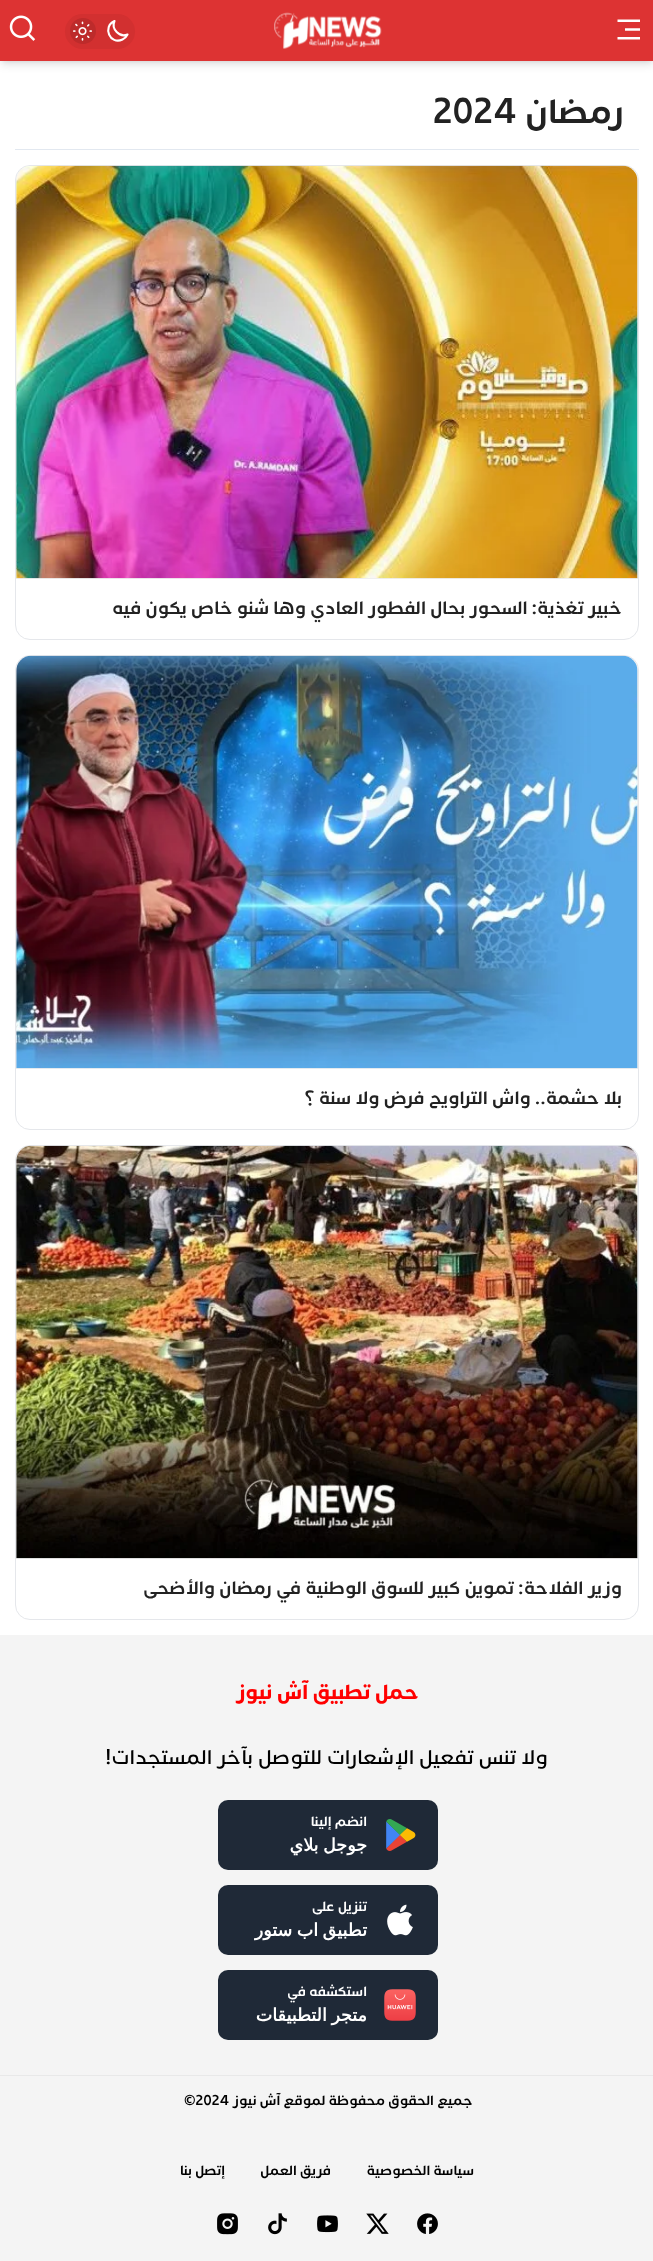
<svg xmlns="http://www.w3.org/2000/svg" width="653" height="2261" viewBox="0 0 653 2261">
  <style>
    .t1 { font: 600 37.5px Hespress; direction: rtl; fill: #222; }
    .t2 { font: 600 37.5px Hespress; fill: #222; }
    .t3 { font: 600 20px Hespress; direction: rtl; fill: #222; }
    .t4 { font: bold 22.5px Hespress; direction: rtl; fill: #f00; }
    .t5 { font: 500 22.5px Hespress; direction: rtl; fill: #000; }
    .t6 { font: 600 15px Hespress; direction: rtl; fill: #fff; }
    .t7 { font: bold 17.5px DejaVu Sans; direction: rtl; fill: #fff; }
    .t8 { font: 600 15px Hespress; direction: rtl; fill: #000; }
    .t9 { font: 600 15px Hespress; fill: #000; }
  </style>
  <rect width="100%" height="100%" fill="#fff"/>
  <rect x="3" y="5" width="648" height="56" fill="#0000001a" filter="blur(2.5px)"/>
  <rect x="1" y="6" width="652" height="59" fill="#0000001a" filter="blur(4px)"/>
  <rect x="0" y="0" width="653" height="61" fill="#d33"/>
  <image x="617" y="19" width="23" height="21" href="images/1.png"/>
  <image x="274" y="12" width="108" height="37" href="images/2.png"/>
  <rect x="65" y="14" width="70" height="35" rx="17.5" fill="#d23030"/>
  <path d="M127.5 34.5C119.5 38 111 29 114.5 21C102 26.5 110 45.5 122.5 39.5C125 38.5 126.5 36.5 127.5 34.5Z" fill="none" stroke="#fff" stroke-width="2.1" stroke-linecap="round" stroke-linejoin="round"/>
  <circle cx="83" cy="31" r="13" fill="#bd2b2b"/>
  <image x="73" y="21" width="19" height="20" href="images/3.png"/>
  <image x="9" y="15" width="27" height="26" href="images/4.png"/>
  <rect x="15" y="149" width="624" height="1" fill="#e2e8f0"/>
  <text x="624" y="123" class="t1">رمضان</text>
  <text x="433" y="123" class="t2">2024</text>
  <rect x="15.5" y="165.5" width="623" height="474" rx="14.5" fill="none" stroke="#e5e7eb"/>
  <path d="M31 166H623C631.5 166 638 172.5 638 181V579H16V181C16 172.5 22.5 166 31 166Z" fill="#eee"/>
  <image x="16" y="165" width="622" height="414" href="images/5.png"/>
  <text x="622" y="614" class="t3">خبير تغذية: السحور بحال الفطور العادي وها شنو خاص يكون فيه</text>
  <rect x="15.5" y="655.5" width="623" height="474" rx="14.5" fill="none" stroke="#e5e7eb"/>
  <path d="M31 656H623C631.5 656 638 662.5 638 671V1069H16V671C16 662.5 22.5 656 31 656Z" fill="#eee"/>
  <image x="16" y="655" width="622" height="414" href="images/6.png"/>
  <text x="622" y="1104" class="t3">بلا حشمة.. واش التراويح فرض ولا سنة ؟</text>
  <rect x="15.5" y="1145.5" width="623" height="474" rx="14.5" fill="none" stroke="#e5e7eb"/>
  <path d="M31 1146H623C631.5 1146 638 1152.5 638 1161V1559H16V1161C16 1152.5 22.5 1146 31 1146Z" fill="#eee"/>
  <image x="16" y="1145" width="622" height="414" href="images/7.png"/>
  <text x="622" y="1594" class="t3">وزير الفلاحة: تموين كبير للسوق الوطنية في رمضان والأضحى</text>
  <rect x="0" y="1635" width="653" height="626" fill="#f4f4f4"/>
  <text x="419" y="1699" class="t4">حمل تطبيق آش نيوز</text>
  <text x="548" y="1764" class="t5">ولا تنس تفعيل الإشعارات للتوصل بآخر المستجدات!</text>
  <rect x="218" y="1800" width="220" height="70" rx="10" fill="#1f2937"/>
  <image x="386" y="1819" width="30" height="32" href="images/8.png"/>
  <text x="367" y="1826" class="t6">انضم إلينا</text>
  <text x="367" y="1851" word-spacing="-1" class="t7">جوجل بلاي</text>
  <rect x="218" y="1885" width="220" height="70" rx="10" fill="#1f2937"/>
  <image x="387" y="1904" width="26" height="32" href="images/9.png"/>
  <text x="367" y="1911" class="t6">تنزيل على</text>
  <text x="367" y="1936" word-spacing="-1" class="t7">تطبيق اب ستور</text>
  <rect x="218" y="1970" width="220" height="70" rx="10" fill="#1f2937"/>
  <image x="384" y="1989" width="32" height="32" href="images/10.png"/>
  <text x="367" y="1996" class="t6">استكشفه في</text>
  <text x="367" y="2021" word-spacing="-1" class="t7">متجر التطبيقات</text>
  <rect x="0" y="2075" width="653" height="1" fill="#e8e8e8"/>
  <text x="473" y="2105" class="t8">جميع الحقوق محفوظة لموقع آش نيوز</text>
  <text x="184" y="2105" class="t9">©2024</text>
  <text x="474" y="2175" class="t8">سياسة الخصوصية</text>
  <text x="331" y="2175" class="t8">فريق العمل</text>
  <text x="225" y="2175" class="t8">إتصل بنا</text>
  <image x="417" y="2213" width="21" height="21" href="images/11.png"/>
  <image x="366" y="2213" width="23" height="21" href="images/12.png"/>
  <image x="317" y="2215" width="21" height="18" href="images/13.png"/>
  <image x="268" y="2213" width="19" height="22" href="images/14.png"/>
  <image x="217" y="2213" width="21" height="22" href="images/15.png"/>
</svg>
